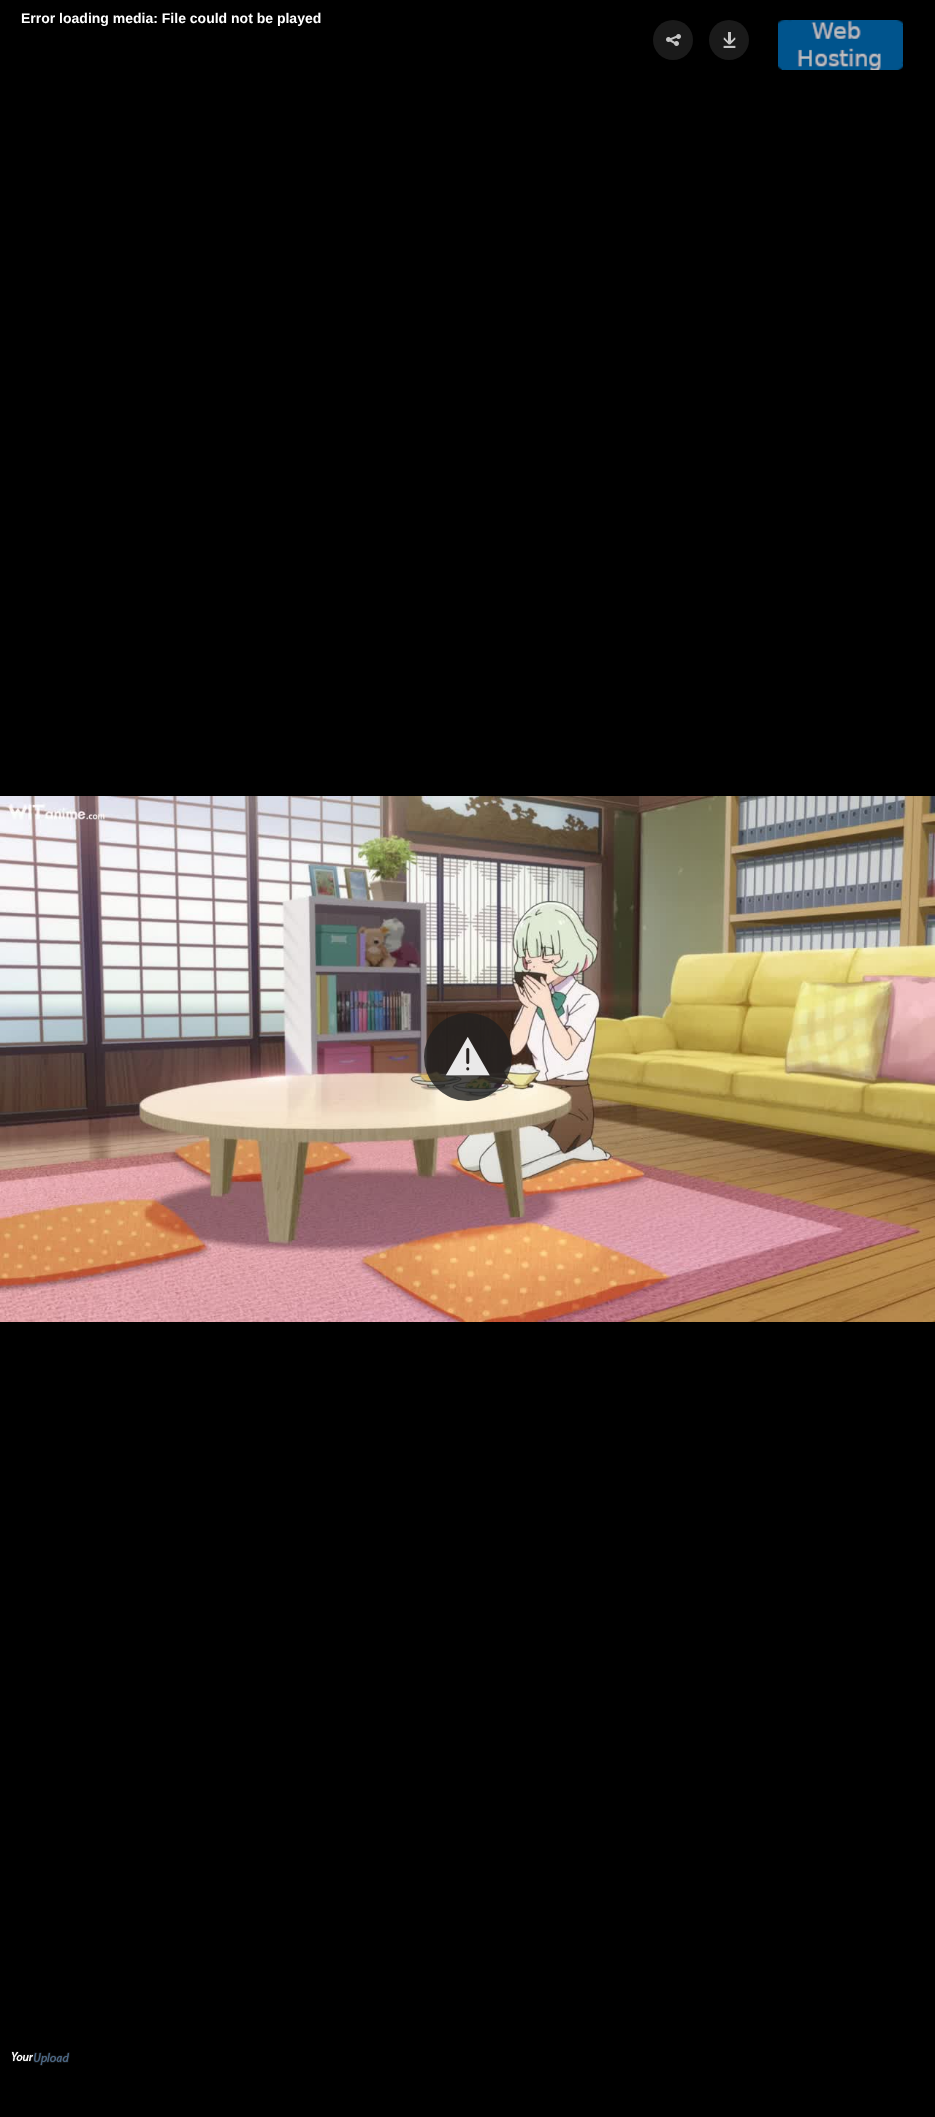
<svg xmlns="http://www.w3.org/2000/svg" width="935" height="2117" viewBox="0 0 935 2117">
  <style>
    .t1 { font: bold 14px Liberation Sans; fill: #fff; }
  </style>
  <rect width="100%" height="100%" fill="#000"/>
  <text x="21" y="23" class="t1">Error loading media: File could not be played</text>
  <circle cx="673" cy="40" r="20" fill="#1a1a1a"/>
  <image x="666" y="34" width="15" height="12" href="images/1.png"/>
  <circle cx="729" cy="40" r="20" fill="#1a1a1a"/>
  <image x="723" y="32" width="13" height="16" href="images/2.png"/>
  <image x="778" y="20" width="125" height="50" href="images/3.png"/>
  <image x="11" y="2051" width="59" height="15" href="images/4.png"/>
  <image x="0" y="796" width="935" height="526" href="images/6.png"/>
  <circle cx="468" cy="1057" r="44" fill="#212121cc"/>
  <image x="445" y="1037" width="45" height="39" href="images/5.png"/>
</svg>
